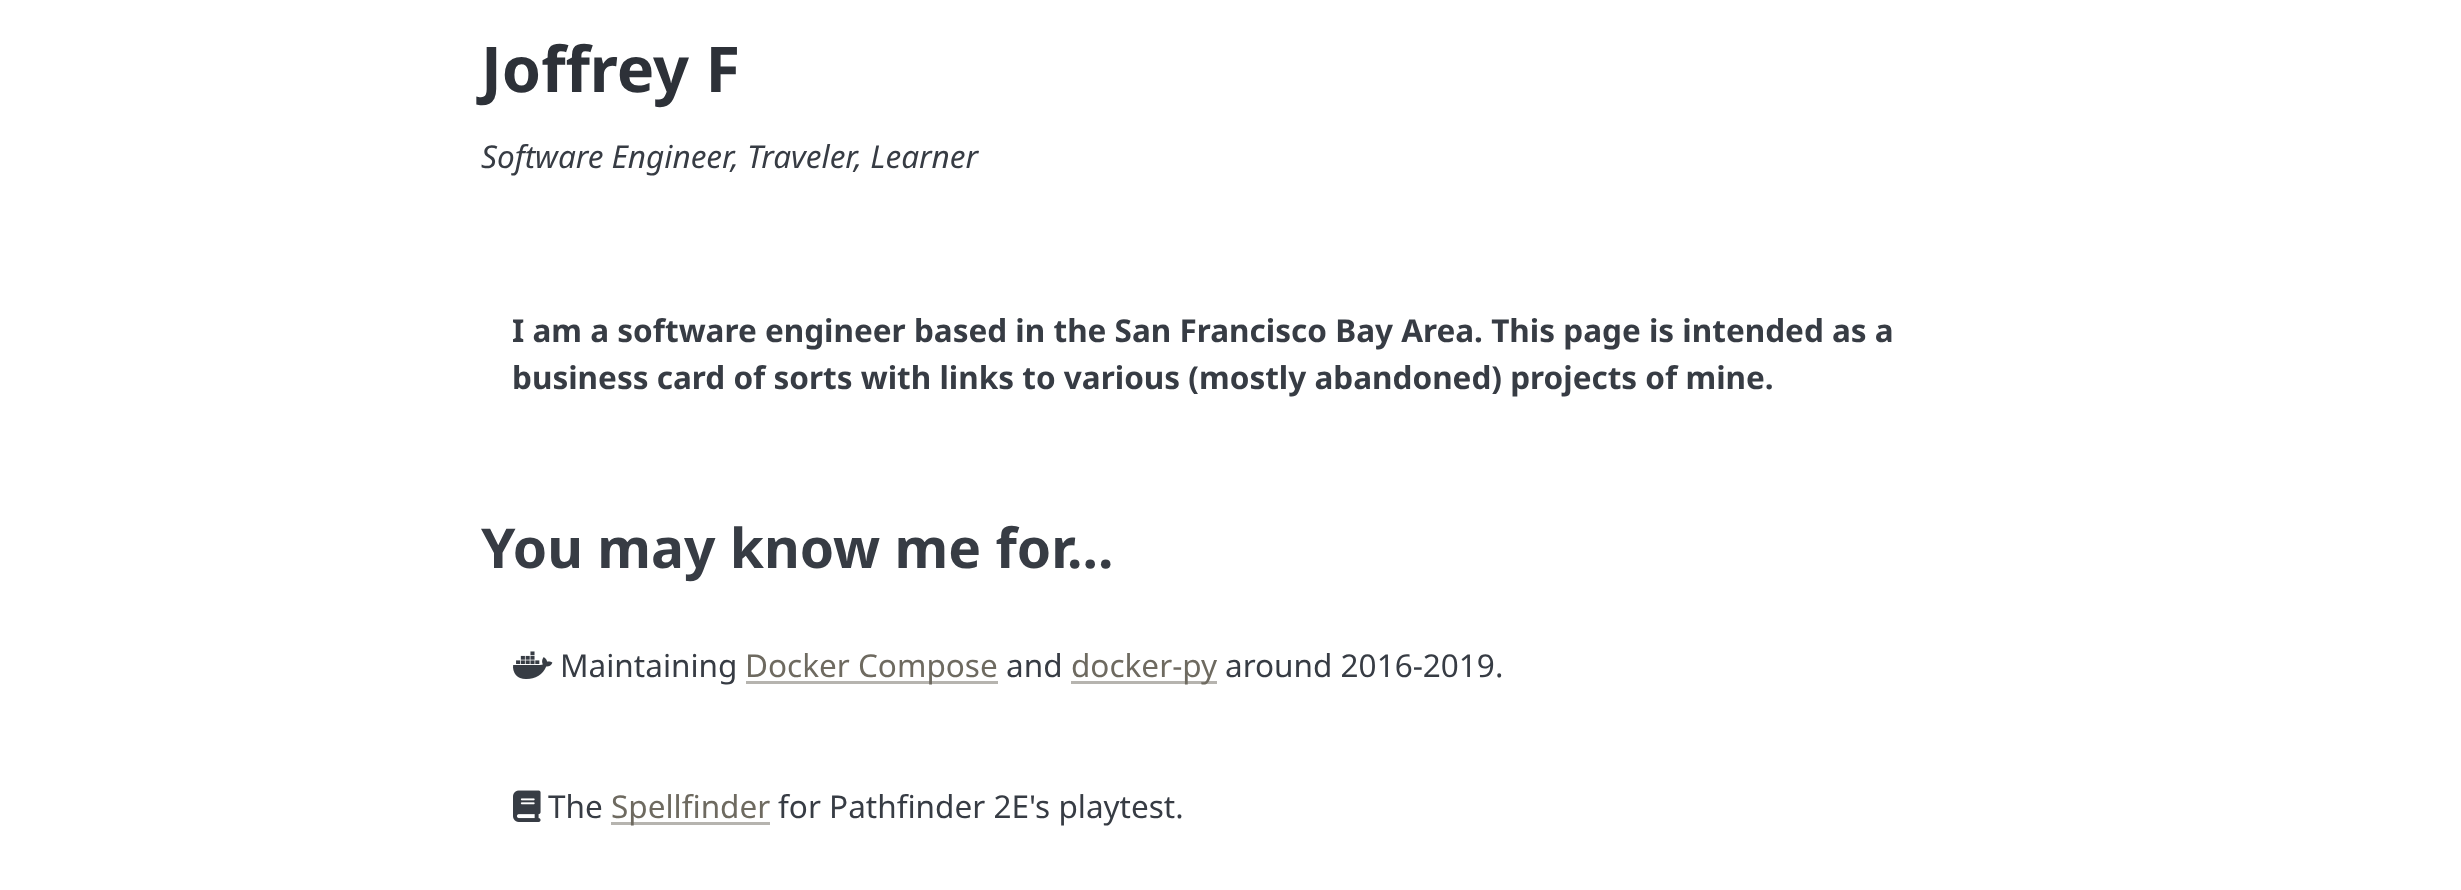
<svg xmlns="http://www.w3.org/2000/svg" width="2461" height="890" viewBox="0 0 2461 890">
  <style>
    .t1 { font: bold 63px Noto Sans; fill: #2d3138; }
    .t2 { font: italic 31.5px Noto Sans; fill: #373c44; }
    .t3 { font: bold 31.5px Noto Sans; fill: #373c44; }
    .t4 { font: bold 55.1px Noto Sans; fill: #373c44; }
    .t5 { font: 31.5px Noto Sans; fill: #373c44; }
    .t6 { font: 31.5px Noto Sans; fill: #6e6a60; }
  </style>
  <rect width="100%" height="100%" fill="#fff"/>
  <text x="481" y="92" class="t1">Joffrey F</text>
  <text x="481" y="168" class="t2">Software Engineer, Traveler, Learner</text>
  <text x="512" y="342" class="t3">I am a software engineer based in the San Francisco Bay Area. This page is intended as a</text>
  <text x="512" y="389" class="t3">business card of sorts with links to various (mostly abandoned) projects of mine.</text>
  <text x="481" y="568" class="t4">You may know me for...</text>
  <image x="513" y="651" width="40" height="28" href="images/1.png"/>
  <text x="560" y="677" class="t5">Maintaining</text>
  <rect x="746" y="681" width="252" height="3" fill="#b6b4af"/>
  <text x="745" y="677" class="t6">Docker Compose</text>
  <text x="1006" y="677" class="t5">and</text>
  <rect x="1071" y="681" width="146" height="3" fill="#b6b4af"/>
  <text x="1071" y="677" class="t6">docker-py</text>
  <text x="1225" y="677" class="t5">around 2016-2019.</text>
  <image x="513" y="790" width="28" height="32" href="images/2.png"/>
  <text x="548" y="818" class="t5">The</text>
  <rect x="611" y="822" width="159" height="3" fill="#b6b4af"/>
  <text x="611" y="818" class="t6">Spellfinder</text>
  <text x="778" y="818" class="t5">for Pathfinder 2E's playtest.</text>
</svg>
